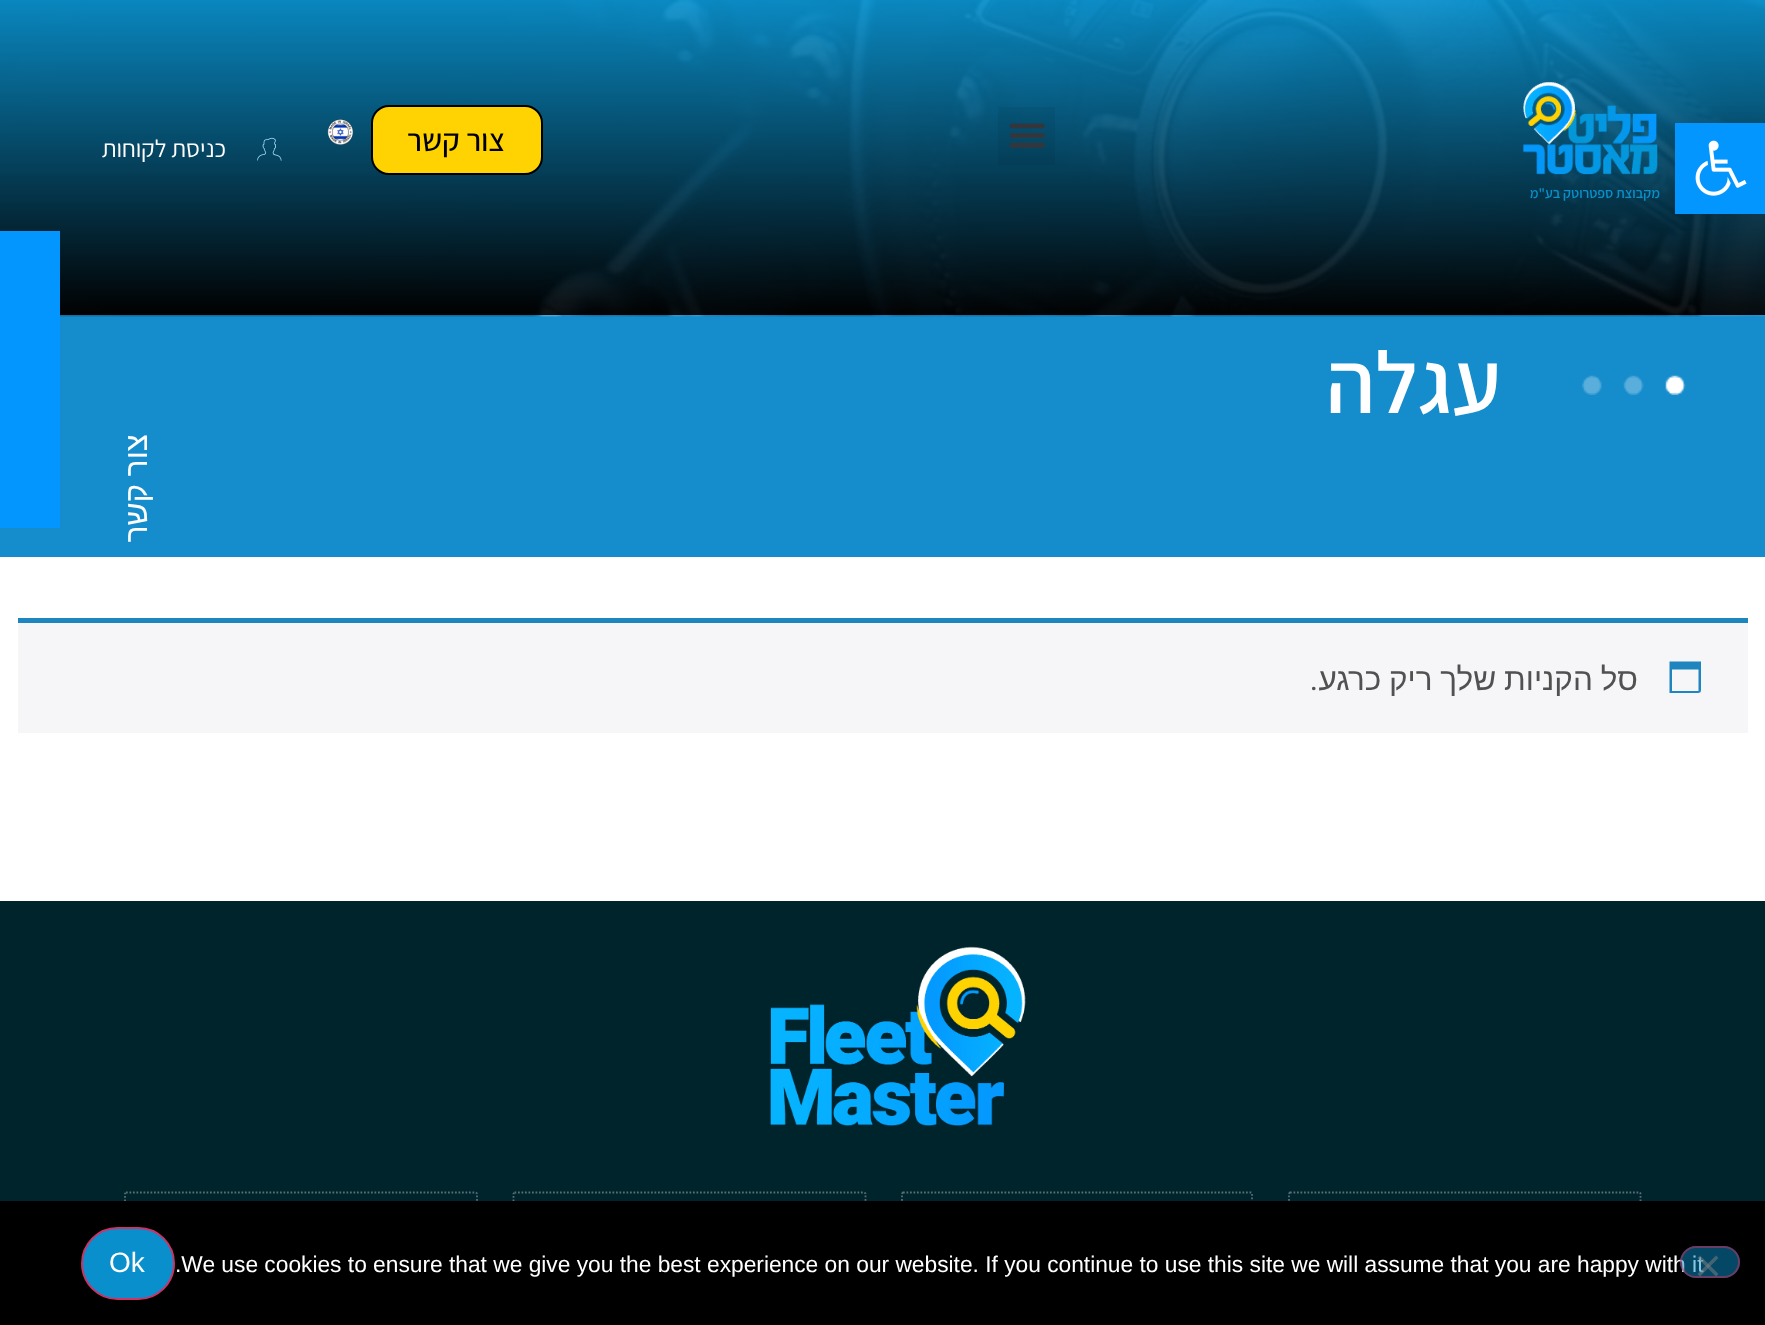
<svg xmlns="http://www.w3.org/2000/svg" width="1765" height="1325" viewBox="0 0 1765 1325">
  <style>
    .t1 { font: 24.5px Assistant; direction: rtl; fill: #fff; }
    .t2 { font: 500 31.5px Assistant; direction: rtl; fill: #000; }
    .t3 { font: 600 14.1px Assistant; direction: rtl; fill: #0990cc; }
    .t4 { font: 31.5px Liberation Sans; direction: rtl; fill: #fff; }
    .t5 { font: 600 88px Assistant; direction: rtl; fill: #fff; }
    .t6 { font: 31.5px Roboto; direction: rtl; fill: #515151; }
    .t7 { font: 31.5px Liberation Sans; direction: rtl; fill: #515151; }
    .t8 { font: 28px Liberation Sans; fill: #fff; }
    .t9 { font: 22.75px Liberation Sans; fill: #fff; }
  </style>
  <defs>
    <linearGradient id="g1" gradientUnits="userSpaceOnUse" x1="883" y1="0" x2="883" y2="315"><stop offset="0" stop-color="#0990cc" stop-opacity="0.93"/><stop offset="1" stop-color="#000" stop-opacity="0.93"/></linearGradient>
  </defs>
  <rect width="100%" height="100%" fill="#fff"/>
  <rect x="60" y="0" width="1705" height="315" fill="#03577c"/>
  <rect x="0" y="315" width="1765" height="242" fill="#158ccc"/>
  <image x="0" y="0" width="1765" height="317" href="images/1.png"/>
  <rect x="0" y="0" width="1765" height="315" fill="url(#g1)"/>
  <text x="226" y="157" class="t1">כניסת לקוחות</text>
  <image x="257" y="137" width="25" height="24" href="images/2.png"/>
  <image x="327" y="119" width="27" height="26" href="images/3.png"/>
  <rect x="372" y="106" width="170" height="68" rx="17" fill="#ffd201" stroke="#000" stroke-width="2"/>
  <text x="505" y="151" class="t2">צור קשר</text>
  <rect x="998" y="107" width="57" height="58" fill="#0000000d"/>
  <image x="1009" y="123" width="36" height="25" href="images/4.png"/>
  <image x="1523" y="82" width="135" height="93" href="images/5.png"/>
  <text x="1660" y="198" class="t3">מקבוצת ספטרוטק בע"מ</text>
  <rect x="1675" y="123" width="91" height="91" fill="#0000001a" filter="blur(9px)"/>
  <rect x="1675" y="123" width="90" height="91" fill="#0496ff"/>
  <image x="1695" y="140" width="52" height="56" href="images/6.png"/>
  <rect x="0" y="231" width="60" height="297" fill="#0496ff"/>
  <text x="147" y="434" transform="rotate(-90 147 434)" word-spacing="-1" class="t4">צור קשר</text>
  <text x="1501" y="413" class="t5">עגלה</text>
  <image x="1582" y="375" width="104" height="20" href="images/7.png"/>
  <rect x="18" y="623" width="1730" height="110" fill="#f6f5f8"/>
  <rect x="18" y="618" width="1730" height="5" fill="#1e85be"/>
  <text x="1318" y="690" class="t6">.</text>
  <text x="1638" y="690" word-spacing="-1" class="t7">סל הקניות שלך ריק כרגע</text>
  <path d="M1698.5 669.5H1672V691H1698.5ZM1701 661.5V686C1701 693.5 1701.5 693 1694 693H1669.5V661.5Z" fill="#1e85be"/>
  <rect x="0" y="901" width="1765" height="300" fill="#00242b"/>
  <image x="770" y="946" width="256" height="180" href="images/8.png"/>
  <path d="M126 1192.5H476L477 1193.5V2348.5L476 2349.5H126L125 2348.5V1193.5Z" fill="none" stroke="#576e73" stroke-width="1.8" stroke-dasharray="1.75 1.75"/>
  <path d="M514.5 1192.5H864.5L865.5 1193.5V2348.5L864.5 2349.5H514.5L513.5 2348.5V1193.5Z" fill="none" stroke="#576e73" stroke-width="1.8" stroke-dasharray="1.75 1.75"/>
  <path d="M903 1192.5H1251L1252 1193.5V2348.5L1251 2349.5H903L902 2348.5V1193.5Z" fill="none" stroke="#576e73" stroke-width="1.8" stroke-dasharray="1.75 1.75"/>
  <path d="M1290 1192.5H1640L1640.5 1193.5V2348.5L1640 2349.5H1290L1289 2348.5V1193.5Z" fill="none" stroke="#576e73" stroke-width="1.8" stroke-dasharray="1.75 1.75"/>
  <rect x="0" y="1201" width="1765" height="124" fill="#000"/>
  <rect x="82" y="1228" width="92" height="71" rx="35.5" fill="#0990cc" stroke="#c36" stroke-width="2"/>
  <text x="109" y="1272" class="t8">Ok</text>
  <text x="175" y="1272" class="t9">.We use cookies to ensure that we give you the best experience on our website. If you continue to use this site we will assume that you are happy with it</text>
  <rect x="1680" y="1246" width="60" height="32" rx="16" fill="#0990cc80"/>
  <rect x="1681" y="1247" width="58" height="30" rx="15" fill="none" stroke="#cc336680" stroke-width="2"/>
  <path d="M1716 1255.5L1718.5 1258L1700 1276.5L1697.5 1274Z" fill="#80808080"/>
  <path d="M1697.5 1258L1700 1255.5L1718.5 1274L1716 1276.5Z" fill="#80808080"/>
</svg>
